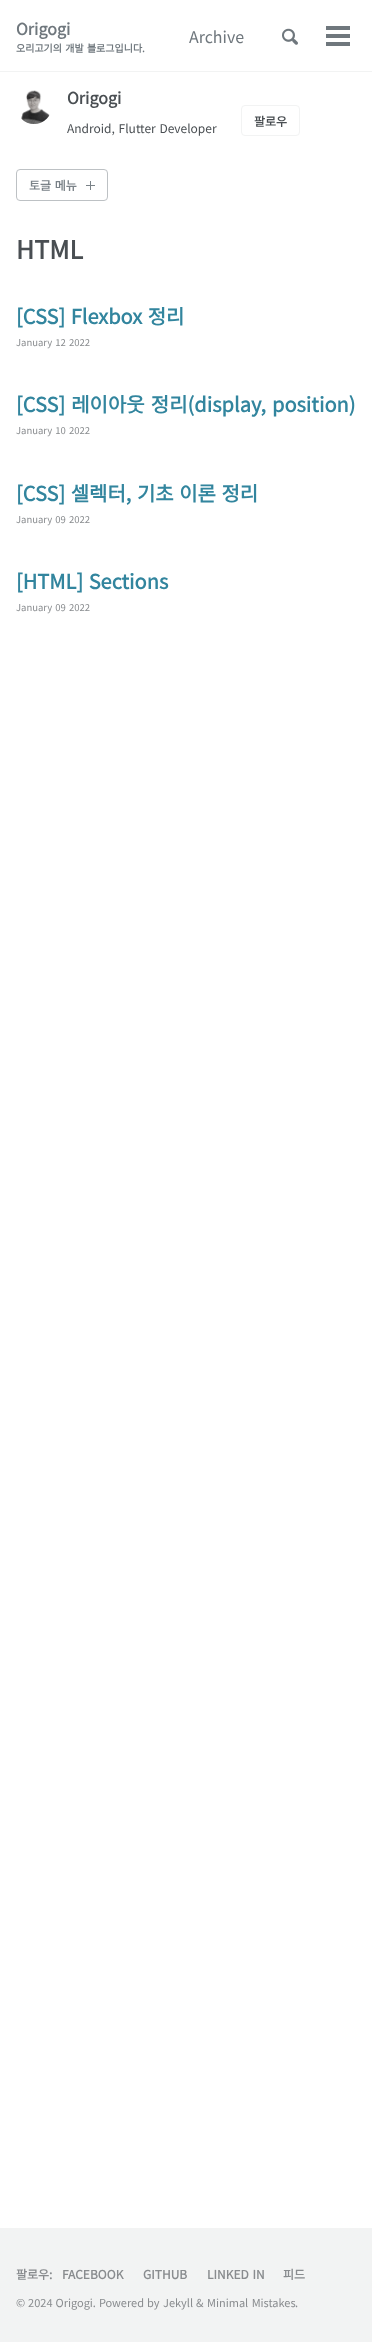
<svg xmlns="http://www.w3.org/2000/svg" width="372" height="2342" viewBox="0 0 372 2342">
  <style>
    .t1 { font: bold 16px Noto Sans KR; fill: #6f777d; }
    .t2 { font: bold 10px Noto Sans KR; fill: #6f777d; }
    .t3 { font: 100 16px Noto Sans KR; fill: #6f777d; }
    .t4 { font: bold 16px Noto Sans KR; fill: #494e52; }
    .t5 { font: 100 12px Noto Sans KR; fill: #494e52; }
    .t6 { font: bold 12px Noto Sans KR; fill: #494e52; }
    .t7 { font: bold 12px Noto Sans KR; fill: #7a8288; }
    .t8 { font: bold 25px Noto Sans KR; fill: #494e52; }
    .t9 { font: bold 20px Noto Sans KR; fill: #32859e; }
    .t10 { font: 100 9.5px Noto Sans KR; fill: #898c8f; }
    .t11 { font: bold 12px Noto Sans KR; fill: #898c8f; }
    .t12 { font: 100 11px Noto Sans KR; fill: #898c8f; }
  </style>
  <rect width="100%" height="100%" fill="#fff"/>
  <rect x="0" y="71" width="372" height="1" fill="#f2f3f3"/>
  <text x="16" y="35" class="t1">Origogi</text>
  <text x="16" y="52" word-spacing="1" class="t2">오리고기의 개발 블로그입니다.</text>
  <text x="189" y="43" class="t3">Archive</text>
  <image x="282" y="28" width="16" height="17" href="images/1.png"/>
  <rect x="326" y="34" width="24" height="4" fill="#6f777d"/>
  <rect x="326" y="26" width="24" height="4" fill="#6f777d"/>
  <rect x="326" y="42" width="24" height="4" fill="#6f777d"/>
  <image x="21" y="90" width="29" height="34" href="images/2.png"/>
  <text x="67" y="104" class="t4">Origogi</text>
  <text x="67" y="133" word-spacing="1" class="t5">Android, Flutter Developer</text>
  <rect x="241.5" y="105.5" width="58" height="30" rx="3.5" fill="none" stroke="#f2f3f3"/>
  <text x="254" y="126" class="t6">팔로우</text>
  <rect x="16.5" y="169.5" width="91" height="31" rx="3.5" fill="none" stroke="#bdc1c4"/>
  <text x="29" y="190" word-spacing="1" class="t7">토글 메뉴</text>
  <rect x="86" y="185" width="9" height="1" fill="#7a8288"/>
  <rect x="90" y="181" width="1" height="9" fill="#7a8288"/>
  <text x="16" y="259" class="t8">HTML</text>
  <text x="16" y="324" word-spacing="1" class="t9">[CSS] Flexbox 정리</text>
  <text x="16" y="346" word-spacing="1" class="t10">January 12 2022</text>
  <text x="16" y="412" word-spacing="1.5" class="t9">[CSS] 레이아웃 정리(display, position)</text>
  <text x="16" y="434" word-spacing="1" class="t10">January 10 2022</text>
  <text x="16" y="501" word-spacing="1" class="t9">[CSS] 셀렉터, 기초 이론 정리</text>
  <text x="16" y="523" word-spacing="1" class="t10">January 09 2022</text>
  <text x="16" y="589" word-spacing="1" class="t9">[HTML] Sections</text>
  <text x="16" y="611" word-spacing="1" class="t10">January 09 2022</text>
  <rect x="0" y="2228" width="372" height="114" fill="#f2f3f3"/>
  <text x="16" y="2279" class="t11">팔로우:</text>
  <text x="62" y="2279" class="t11">FACEBOOK</text>
  <text x="143" y="2279" class="t11">GITHUB</text>
  <text x="207" y="2279" word-spacing="1" class="t11">LINKED IN</text>
  <text x="283" y="2279" class="t11">피드</text>
  <text x="16" y="2307" word-spacing="0.5" class="t12">© 2024 Origogi. Powered by</text>
  <text x="163" y="2307" class="t12">Jekyll</text>
  <text x="196" y="2307" class="t12">&amp;</text>
  <text x="207" y="2307" word-spacing="1" class="t12">Minimal Mistakes</text>
  <text x="295" y="2307" class="t12">.</text>
</svg>
